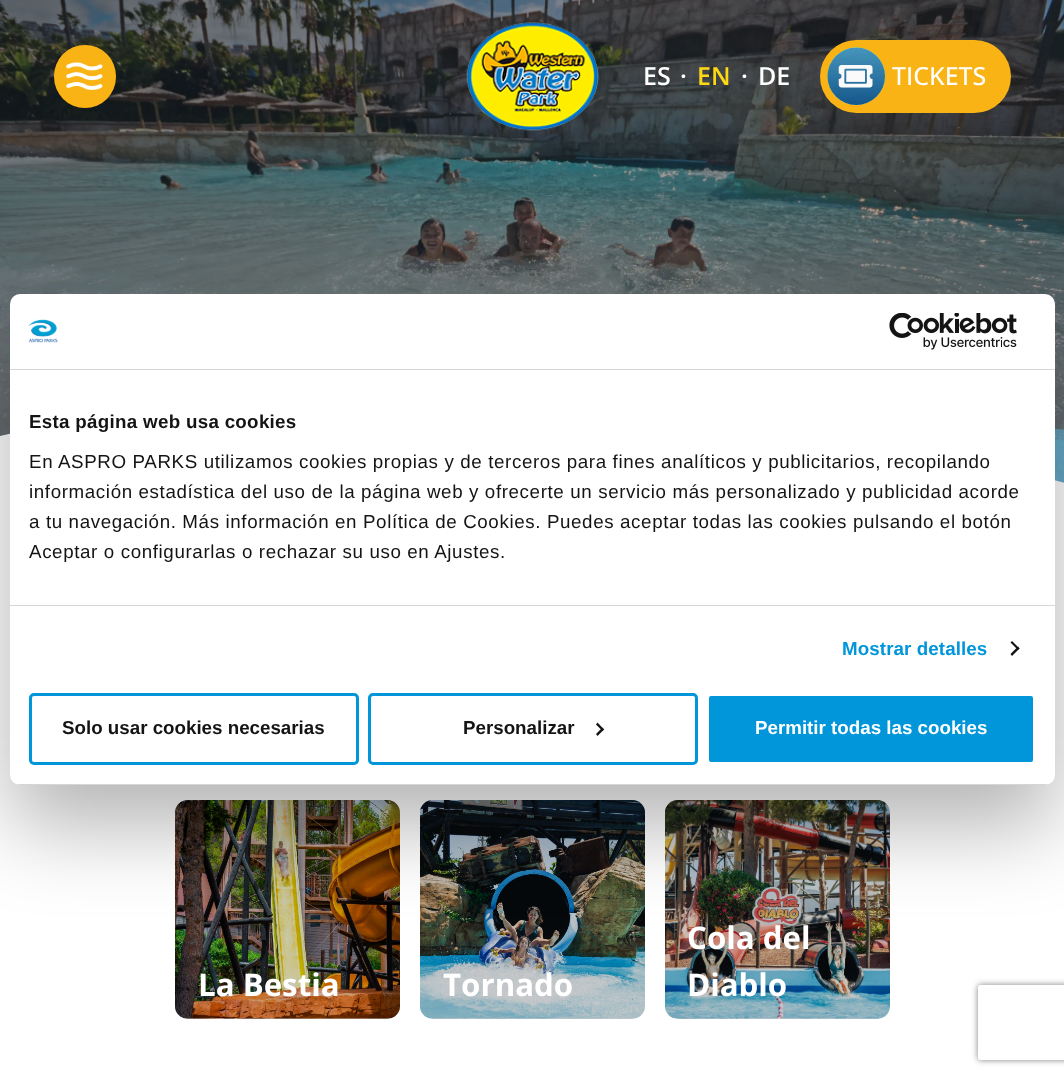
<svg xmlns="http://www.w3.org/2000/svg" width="1064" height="1077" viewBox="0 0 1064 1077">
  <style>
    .t1 { font: 600 25px Open Sans; fill: #fff; }
    .t2 { font: 600 25px Open Sans; fill: #ffd814; }
    .t3 { font: 500 25px Open Sans; fill: #fff; }
    .t4 { font: bold 18.75px Liberation Sans; letter-spacing: 0.3px; fill: #141414; }
    .t5 { font: 18.75px Liberation Sans; letter-spacing: 0.62px; fill: #141414; }
    .t6 { font: bold 18.75px Liberation Sans; letter-spacing: 0.1px; fill: #0196da; }
    .t7 { font: bold 18.75px Liberation Sans; fill: #141414; }
    .t8 { font: bold 18.75px Liberation Sans; fill: #fff; }
    .t9 { font: bold 31.25px Open Sans; fill: #fff; }
  </style>
  <defs>
    <clipPath id="clip1"><rect x="10" y="294" width="1045" height="491" rx="10"/></clipPath>
    <clipPath id="clip2"><path d="M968 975H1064V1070H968ZM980.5 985H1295.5C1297 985 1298 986 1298 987.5V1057.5C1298 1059 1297 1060 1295.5 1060H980.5C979 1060 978 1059 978 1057.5V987.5C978 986 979 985 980.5 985Z" clip-rule="evenodd"/></clipPath>
  </defs>
  <rect width="100%" height="100%" fill="#fff"/>
  <image x="0" y="0" width="1064" height="483" href="images/8.png"/>
  <rect x="54" y="45" width="62" height="63" rx="31" fill="#fab314"/>
  <image x="66" y="62" width="37" height="28" href="images/1.png"/>
  <image x="466" y="22" width="134" height="109" href="images/2.png"/>
  <text x="643" y="85" class="t1">ES</text>
  <text x="680" y="85" class="t1">·</text>
  <text x="697" y="85" class="t2">EN</text>
  <text x="741" y="85" class="t1">·</text>
  <text x="758" y="85" class="t1">DE</text>
  <rect x="820" y="40" width="191" height="73" rx="36.5" fill="#fab314"/>
  <image x="827" y="47" width="58" height="58" href="images/3.png"/>
  <image x="827" y="47" width="58" height="58" href="images/4.png"/>
  <image x="838" y="65" width="35" height="23" href="images/5.png"/>
  <text x="892" y="85" class="t3">TICKETS</text>
  <image x="1055" y="428" width="9" height="55" href="images/9.png"/>
  <path d="M780 463C728 470 678 483 627 491C554 503 478 503 405 492C334 480 260 452 190 438C128 426 60 421 0 436V501H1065V483C974 456 875 450 780 463Z" fill="#fff"/>
  <image x="175" y="800" width="225" height="219" href="images/10.png"/>
  <rect x="175" y="800" width="225" height="219" rx="13" fill="#00000033"/>
  <image x="420" y="800" width="225" height="219" href="images/11.png"/>
  <rect x="420" y="800" width="225" height="219" rx="13" fill="#00000033"/>
  <image x="665" y="800" width="225" height="219" href="images/12.png"/>
  <rect x="665" y="800" width="225" height="219" rx="13" fill="#00000033"/>
  <rect x="10" y="334" width="1045" height="491" rx="10" fill="#0000004d" filter="blur(42.5px)"/>
  <rect x="10" y="294" width="1045" height="491" rx="10" fill="#fff"/>
  <rect x="10" y="369" width="1045" height="1" fill="#d6d6d6"/>
  <image x="28" y="319" width="30" height="24" href="images/6.png"/>
  <image x="889" y="313" width="128" height="37" href="images/7.png"/>
  <rect x="10" y="605" width="1045" height="1" fill="#d6d6d6"/>
  <text x="29" y="428" class="t4">Esta página web usa cookies</text>
  <text x="29" y="468" class="t5">En ASPRO PARKS utilizamos cookies propias y de terceros para fines analíticos y publicitarios, recopilando</text>
  <text x="29" y="498" class="t5">información estadística del uso de la página web y ofrecerte un servicio más personalizado y publicidad acorde</text>
  <text x="29" y="528" class="t5">a tu navegación. Más información en Política de Cookies. Puedes aceptar todas las cookies pulsando el botón</text>
  <text x="29" y="558" class="t5">Aceptar o configurarlas o rechazar su uso en Ajustes.</text>
  <text x="842" y="655" class="t6">Mostrar detalles</text>
  <path d="M1012 641L1019.5 648.5L1018 650L1010.5 642.5Z" fill="#141414"/>
  <path d="M1018 646.5L1019.5 648.5L1012 656L1010.5 654Z" fill="#141414"/>
  <g clip-path="url(#clip1)">
    <rect x="10" y="784" width="1045" height="1" fill="#d6d6d6"/>
  </g>
  <rect x="30.5" y="694.5" width="327" height="69" rx="3.5" fill="none" stroke="#0196da" stroke-width="3"/>
  <text x="62" y="734" class="t7">Solo usar cookies necesarias</text>
  <rect x="369.5" y="694.5" width="327" height="69" rx="3.5" fill="none" stroke="#0196da" stroke-width="3"/>
  <text x="463" y="734" class="t7">Personalizar</text>
  <path d="M597.5 722.5L604 729.5L602.5 731L596 724.5Z" fill="#141414"/>
  <path d="M602.5 727.5L604 729.5L597.5 736L596 734Z" fill="#141414"/>
  <rect x="707.5" y="694.5" width="327" height="69" rx="3.5" fill="#0196da" stroke="#fff" stroke-width="3"/>
  <text x="755" y="734" class="t8">Permitir todas las cookies</text>
  <text x="198" y="996" class="t9">La Bestia</text>
  <text x="443" y="996" class="t9">Tornado</text>
  <text x="687" y="949" class="t9">Cola del</text>
  <text x="687" y="996" class="t9">Diablo</text>
  <g clip-path="url(#clip2)">
    <rect x="978" y="985" width="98" height="75" rx="2.5" fill="#808080" filter="blur(3px)"/>
  </g>
</svg>
